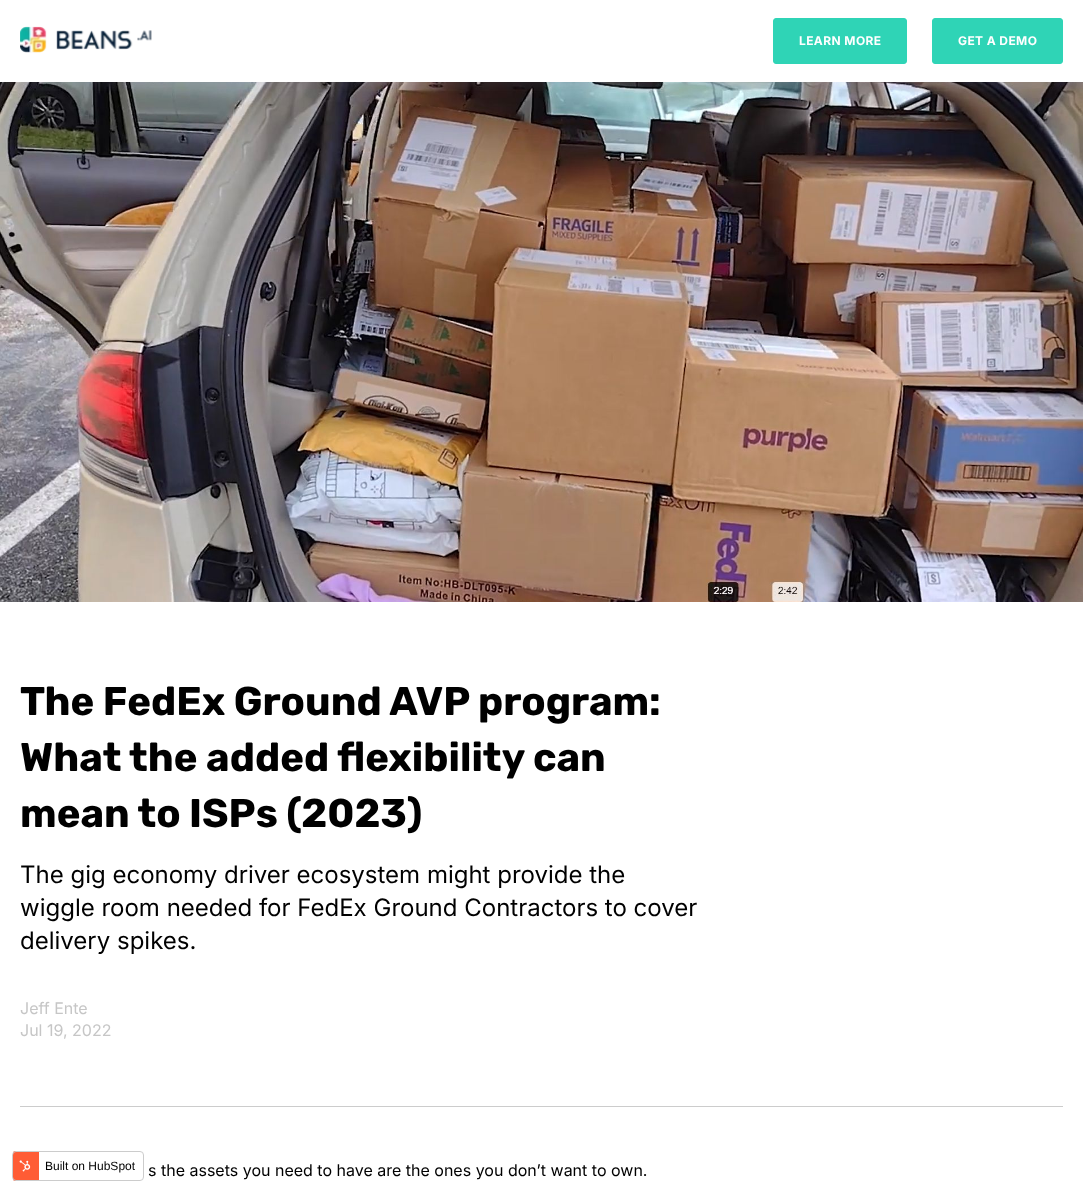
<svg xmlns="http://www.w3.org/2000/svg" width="1083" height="1193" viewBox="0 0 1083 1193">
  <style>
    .t1 { font: bold 12px Inter; letter-spacing: 0.4px; fill: #fff; }
    .t2 { font: bold 40px Rubik; fill: #000; }
    .t3 { font: 24px Inter; fill: #000; }
    .t4 { font: 16px Inter; fill: #c6c6c6; }
    .t5 { font: 16px Inter; fill: #000; }
    .t6 { font: 12px Liberation Sans; fill: #000; }
  </style>
  <defs>
    <clipPath id="clip1"><rect x="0" y="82" width="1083" height="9"/></clipPath>
    <clipPath id="clip2"><rect x="12" y="1151" width="132" height="30" rx="4"/></clipPath>
  </defs>
  <rect width="100%" height="100%" fill="#fff"/>
  <image x="0" y="82" width="1083" height="520" href="images/2.png"/>
  <g clip-path="url(#clip1)">
    <rect x="0" y="5" width="1083" height="82" fill="#9aa1b11a" filter="blur(5px)"/>
  </g>
  <image x="20" y="26" width="132" height="27" href="images/1.png"/>
  <rect x="773.5" y="18.5" width="133" height="45" rx="2.5" fill="#2fd4b6" stroke="#2fd4b6"/>
  <text x="799" y="45" class="t1">LEARN MORE</text>
  <rect x="932.5" y="18.5" width="130" height="45" rx="2.5" fill="#2fd4b6" stroke="#2fd4b6"/>
  <text x="958" y="45" class="t1">GET A DEMO</text>
  <text x="20" y="715" class="t2">The FedEx Ground AVP program:</text>
  <text x="20" y="771" class="t2">What the added flexibility can</text>
  <text x="20" y="827" class="t2">mean to ISPs (2023)</text>
  <text x="20" y="883" class="t3">The gig economy driver ecosystem might provide the</text>
  <text x="20" y="916" class="t3">wiggle room needed for FedEx Ground Contractors to cover</text>
  <text x="20" y="949" class="t3">delivery spikes.</text>
  <text x="20" y="1014" class="t4">Jeff Ente</text>
  <text x="20" y="1036" class="t4">Jul 19, 2022</text>
  <rect x="20" y="1106" width="1043" height="1" fill="#ccc"/>
  <text x="148" y="1176" class="t5">s the assets you need to have are the ones you don’t want to own.</text>
  <g clip-path="url(#clip2)">
    <rect x="13" y="1151" width="26" height="30" fill="#ff5c35"/>
  </g>
  <rect x="12.5" y="1151.5" width="131" height="29" rx="3.5" fill="none" stroke="#ccc"/>
  <image x="19" y="1160" width="12" height="12" href="images/3.png"/>
  <text x="45" y="1170" class="t6">Built on HubSpot</text>
</svg>
